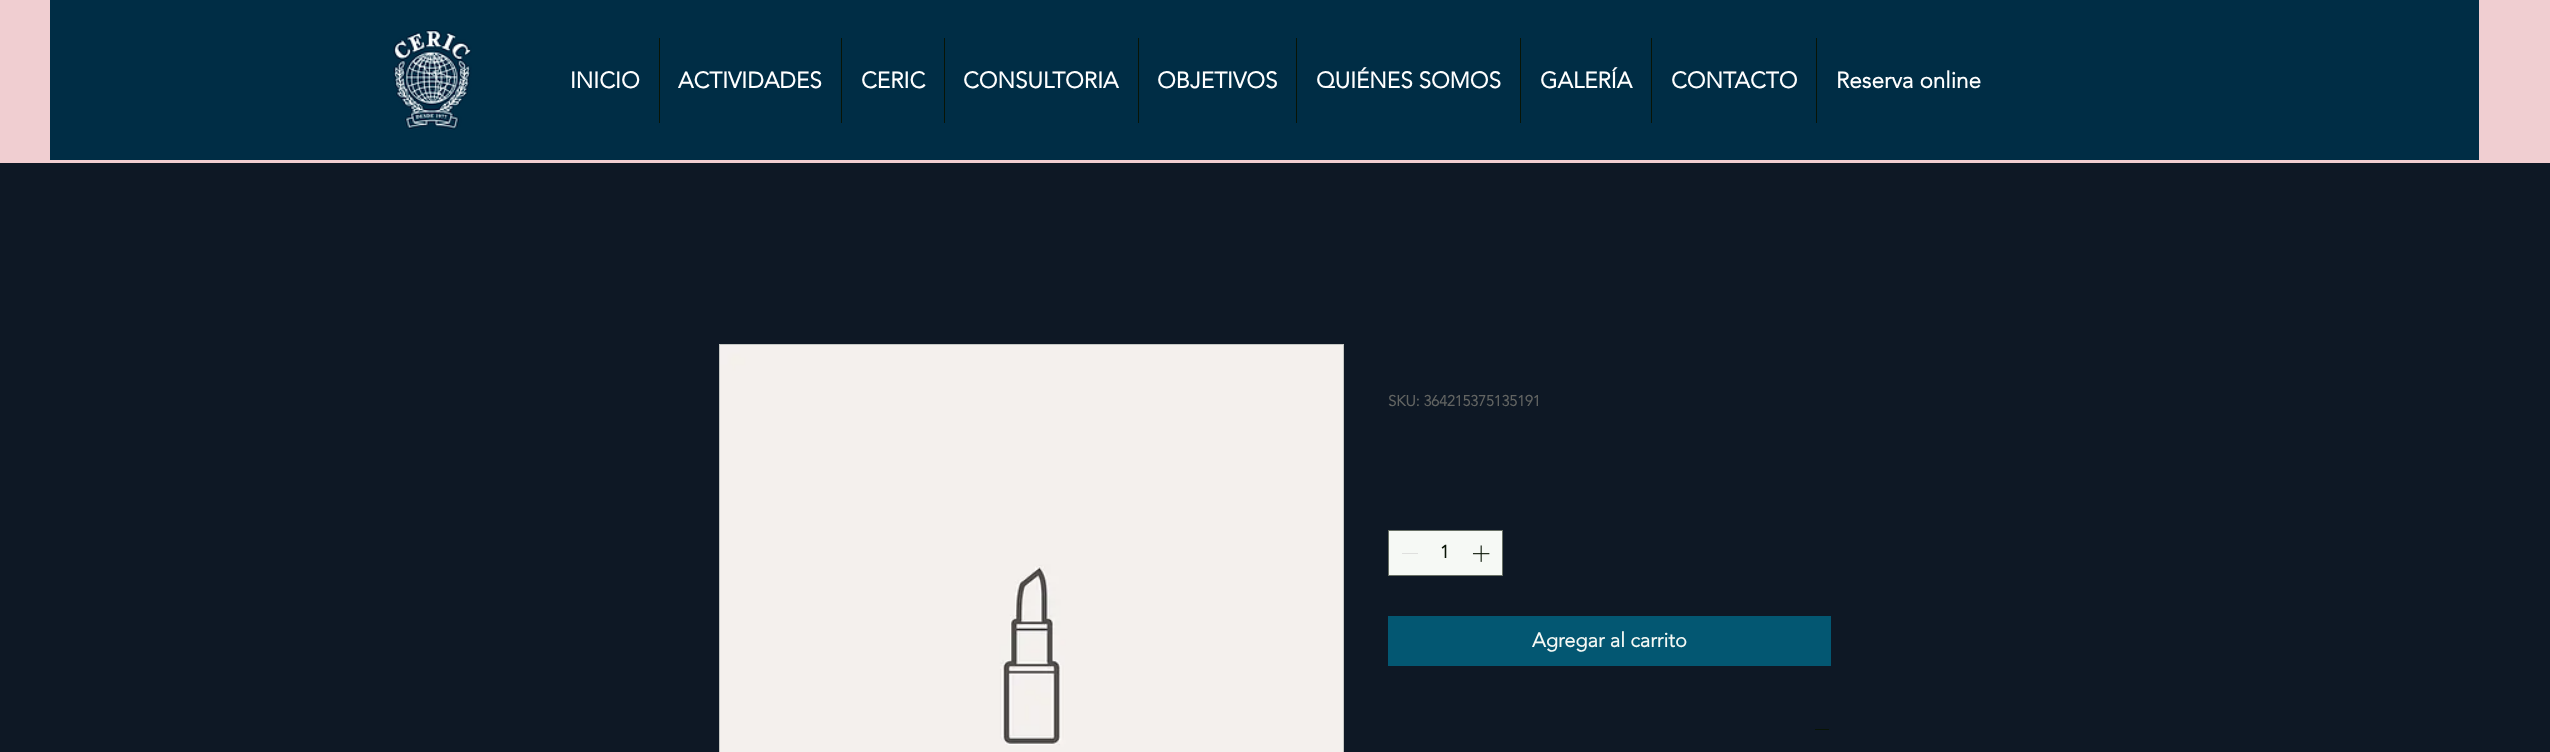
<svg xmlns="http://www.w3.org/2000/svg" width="2550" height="752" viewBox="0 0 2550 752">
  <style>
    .t1 { font: bold 22.5px 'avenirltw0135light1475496'; fill: #fff; }
    .t2 { font: bold 15px 'avenirltw0135light1475496'; fill: #626462; }
    .t3 { font: bold 18px 'avenirltw0135light1475496'; fill: #091405; }
    .t4 { font: bold 20px 'avenirltw0135light1475496'; fill: #f6f9f5; }
  </style>
  <rect width="100%" height="100%" fill="#0e1825"/>
  <rect x="0" y="0" width="2550" height="163" fill="#f0ced1"/>
  <rect x="50" y="0" width="2429" height="160" fill="#002d45"/>
  <image x="393" y="30" width="79" height="100" href="images/1.png"/>
  <text x="570" y="88" class="t1">INICIO</text>
  <rect x="659" y="38" width="1" height="85" fill="#091405"/>
  <text x="678" y="88" class="t1">ACTIVIDADES</text>
  <rect x="841" y="38" width="1" height="85" fill="#091405"/>
  <text x="861" y="88" class="t1">CERIC</text>
  <rect x="944" y="38" width="1" height="85" fill="#091405"/>
  <text x="963" y="88" class="t1">CONSULTORIA</text>
  <rect x="1138" y="38" width="1" height="85" fill="#091405"/>
  <text x="1157" y="88" class="t1">OBJETIVOS</text>
  <rect x="1296" y="38" width="1" height="85" fill="#091405"/>
  <text x="1316" y="88" class="t1">QUIÉNES SOMOS</text>
  <rect x="1520" y="38" width="1" height="85" fill="#091405"/>
  <text x="1540" y="88" class="t1">GALERÍA</text>
  <rect x="1651" y="38" width="1" height="85" fill="#091405"/>
  <text x="1671" y="88" class="t1">CONTACTO</text>
  <rect x="1816" y="38" width="1" height="85" fill="#091405"/>
  <text x="1836" y="88" class="t1">Reserva online</text>
  <rect x="719.5" y="344.5" width="624" height="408" fill="none" stroke="#c5c7c4"/>
  <image x="720" y="345" width="623" height="407" href="images/2.png"/>
  <text x="1388" y="406" class="t2">SKU: 364215375135191</text>
  <rect x="1388.5" y="530.5" width="114" height="45" fill="#f6f9f5" stroke="#687065"/>
  <rect x="1402" y="553" width="16" height="1" fill="#dfe0de"/>
  <text x="1440" y="558" class="t3">1</text>
  <image x="1472" y="545" width="18" height="17" href="images/3.png"/>
  <rect x="1388" y="616" width="443" height="50" fill="#035772"/>
  <text x="1532" y="647" class="t4">Agregar al carrito</text>
  <rect x="1815" y="729" width="14" height="1" fill="#091405"/>
</svg>
